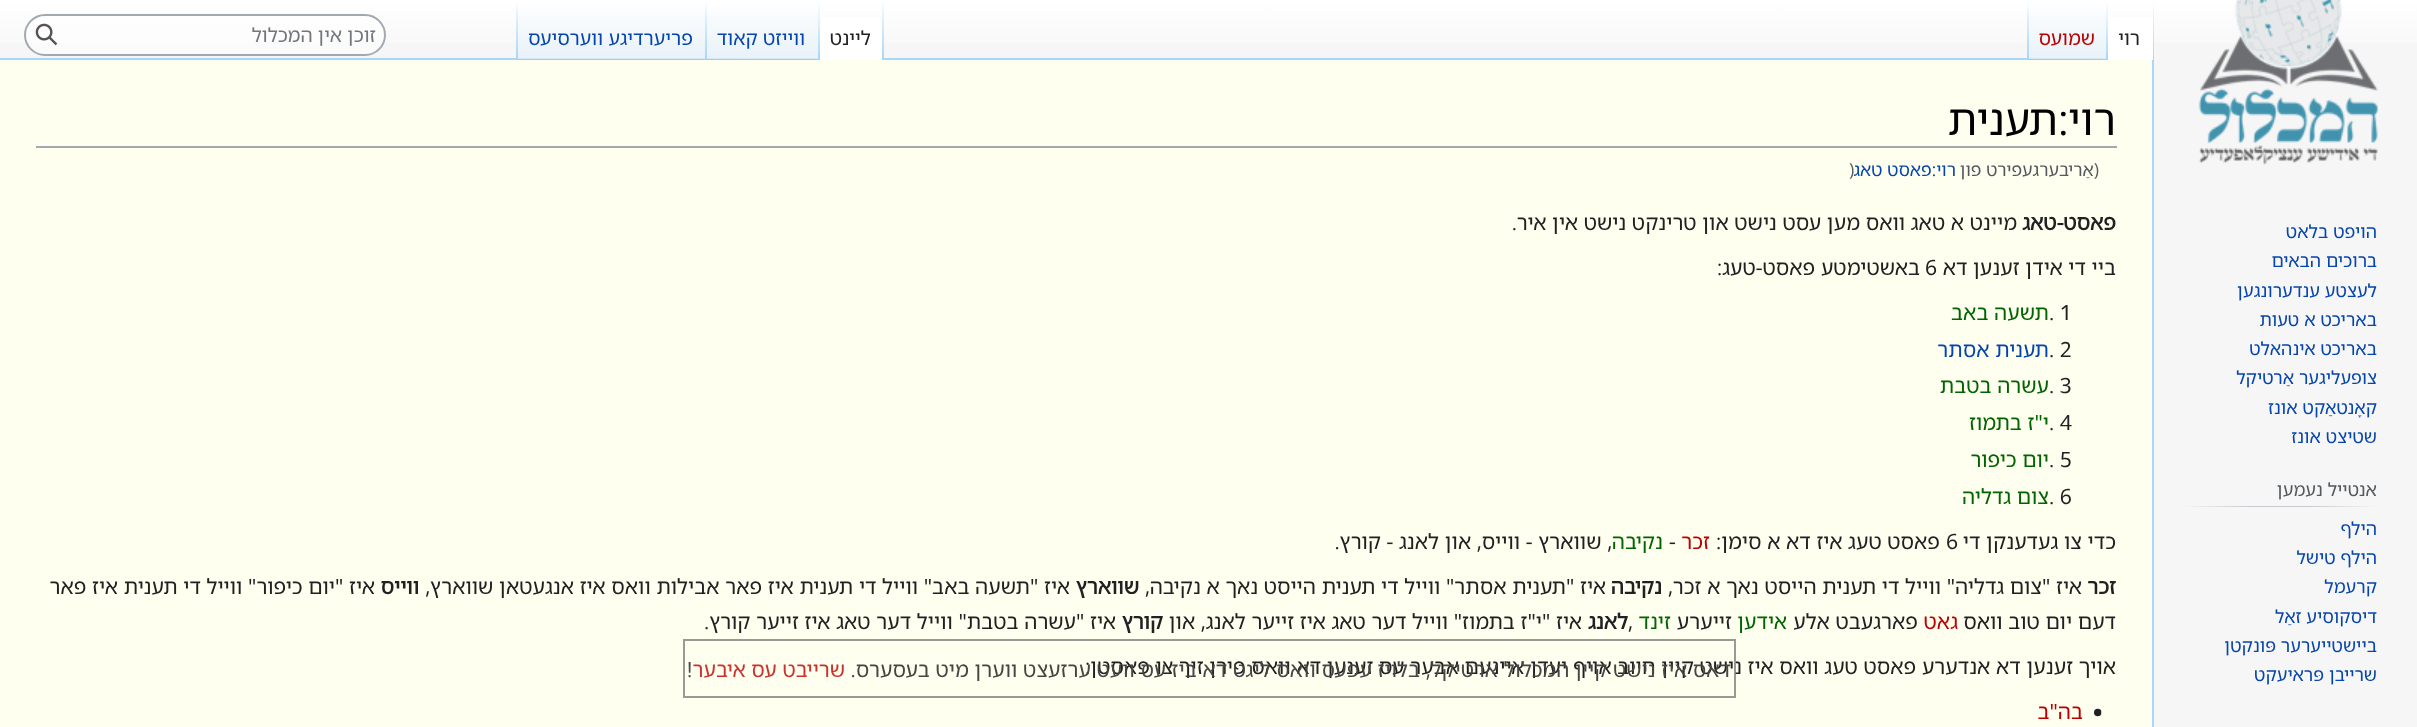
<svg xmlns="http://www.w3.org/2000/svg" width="2417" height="727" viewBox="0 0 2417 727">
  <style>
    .t1 { font: 100 19.5px Noto Sans Hebrew; direction: rtl; fill: #202122; }
    .t2 { font: 100 19.5px Noto Sans Hebrew; direction: rtl; fill: #ba0000; }
    .t3 { font: 100 19.5px Noto Sans Hebrew; direction: rtl; fill: #0645ad; }
    .t4 { font: 100 19.5px Noto Sans Hebrew; direction: rtl; fill: #72777d; }
    .t5 { font: 100 18px Noto Sans Hebrew; direction: rtl; fill: #0645ad; }
    .t6 { font: 100 18px Noto Sans Hebrew; direction: rtl; fill: #54595d; }
    .t7 { font: 100 43px Noto Sans Hebrew; direction: rtl; fill: #000; }
    .t8 { font: 100 43px Noto Sans Hebrew; fill: #000; }
    .t9 { font: 100 17.75px Noto Sans Hebrew; direction: rtl; fill: #54595d; }
    .t10 { font: 100 17.75px Noto Sans Hebrew; direction: rtl; fill: #0645ad; }
    .t11 { font: 100 17.75px Noto Sans Hebrew; fill: #54595d; }
    .t12 { font: bold 21px Noto Sans Hebrew; direction: rtl; fill: #202122; }
    .t13 { font: 100 21px Noto Sans Hebrew; direction: rtl; fill: #202122; }
    .t14 { font: 100 21px Noto Sans Hebrew; fill: #202122; }
    .t15 { font: 100 21px Noto Sans Hebrew; direction: rtl; fill: #006400; }
    .t16 { font: 100 21px Noto Sans Hebrew; direction: rtl; fill: #0645ad; }
    .t17 { font: 100 21px Noto Sans Hebrew; direction: rtl; fill: #ba0000; }
    .t18 { font: 100 21px Noto Sans Hebrew; direction: rtl; fill: #464745; }
    .t19 { font: 100 21px Noto Sans Hebrew; direction: rtl; fill: #c83330; }
    .t20 { font: 100 21px Noto Sans Hebrew; fill: #4d4d4b; }
  </style>
  <defs>
    <linearGradient id="g1" gradientUnits="userSpaceOnUse" x1="1209" y1="-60" x2="1209" y2="60"><stop offset="0.5" stop-color="#fff"/><stop offset="1" stop-color="#f6f6f6"/></linearGradient>
    <linearGradient id="g2" gradientUnits="userSpaceOnUse" x1="2153" y1="0" x2="2153" y2="60"><stop offset="0" stop-color="#a7d7f9" stop-opacity="0"/><stop offset="1" stop-color="#a7d7f9"/></linearGradient>
    <linearGradient id="g3" gradientUnits="userSpaceOnUse" x1="2107" y1="0" x2="2107" y2="60"><stop offset="0" stop-color="#fff"/><stop offset="1" stop-color="#a7d7f9"/></linearGradient>
    <linearGradient id="g4" gradientUnits="userSpaceOnUse" x1="2066" y1="60" x2="2066" y2="0"><stop offset="0" stop-color="#77c1f6"/><stop offset="0.03" stop-color="#e8f2f8"/><stop offset="1" stop-color="#fff"/></linearGradient>
    <linearGradient id="g5" gradientUnits="userSpaceOnUse" x1="2027" y1="0" x2="2027" y2="60"><stop offset="0" stop-color="#a7d7f9" stop-opacity="0"/><stop offset="1" stop-color="#a7d7f9"/></linearGradient>
    <linearGradient id="g6" gradientUnits="userSpaceOnUse" x1="883" y1="0" x2="883" y2="60"><stop offset="0" stop-color="#a7d7f9" stop-opacity="0"/><stop offset="1" stop-color="#a7d7f9"/></linearGradient>
    <linearGradient id="g7" gradientUnits="userSpaceOnUse" x1="818" y1="0" x2="818" y2="60"><stop offset="0" stop-color="#fff"/><stop offset="1" stop-color="#a7d7f9"/></linearGradient>
    <linearGradient id="g8" gradientUnits="userSpaceOnUse" x1="761" y1="60" x2="761" y2="0"><stop offset="0" stop-color="#77c1f6"/><stop offset="0.03" stop-color="#e8f2f8"/><stop offset="1" stop-color="#fff"/></linearGradient>
    <linearGradient id="g9" gradientUnits="userSpaceOnUse" x1="706" y1="0" x2="706" y2="60"><stop offset="0" stop-color="#a7d7f9" stop-opacity="0"/><stop offset="1" stop-color="#a7d7f9"/></linearGradient>
    <linearGradient id="g10" gradientUnits="userSpaceOnUse" x1="611" y1="60" x2="611" y2="0"><stop offset="0" stop-color="#77c1f6"/><stop offset="0.03" stop-color="#e8f2f8"/><stop offset="1" stop-color="#fff"/></linearGradient>
    <linearGradient id="g11" gradientUnits="userSpaceOnUse" x1="517" y1="0" x2="517" y2="60"><stop offset="0" stop-color="#a7d7f9" stop-opacity="0"/><stop offset="1" stop-color="#a7d7f9"/></linearGradient>
    <linearGradient id="g12" gradientUnits="userSpaceOnUse" x1="2378" y1="506" x2="2181" y2="506"><stop offset="0" stop-color="#f6f6f6"/><stop offset="0.33" stop-color="#c8ccd1"/><stop offset="0.66" stop-color="#c8ccd1"/><stop offset="1" stop-color="#f6f6f6"/></linearGradient>
  </defs>
  <rect width="100%" height="100%" fill="#f6f6f6"/>
  <rect x="0" y="0" width="2417" height="43" fill="url(#g1)"/>
  <path d="M0 60H2152V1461C2152 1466 2148 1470 2144 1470H10C5 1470 0 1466 0 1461Z" fill="#fffff0"/>
  <path d="M0 58H2154V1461C2154 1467 2149 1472 2144 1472H10C5 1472 0 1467 0 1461ZM0 60H2152V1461C2152 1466 2148 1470 2144 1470H10C5 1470 0 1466 0 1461Z" fill="#a7d7f9" fill-rule="evenodd"/>
  <rect x="2153" y="0" width="1" height="60" fill="url(#g2)"/>
  <rect x="2108" y="17" width="45" height="43" fill="#fff"/>
  <rect x="2106" y="0" width="2" height="60" fill="url(#g3)"/>
  <text x="2140" y="45" class="t1">רוי</text>
  <rect x="2027" y="9" width="79" height="51" fill="url(#g4)"/>
  <rect x="2027" y="0" width="2" height="60" fill="url(#g5)"/>
  <text x="2095" y="45" class="t2">שמועס</text>
  <rect x="882" y="0" width="2" height="60" fill="url(#g6)"/>
  <rect x="820" y="17" width="62" height="43" fill="#fff"/>
  <rect x="818" y="0" width="2" height="60" fill="url(#g7)"/>
  <text x="871" y="45" class="t1">ליינט</text>
  <rect x="705" y="9" width="113" height="51" fill="url(#g8)"/>
  <rect x="705" y="0" width="2" height="60" fill="url(#g9)"/>
  <text x="805" y="45" class="t3">ווייזט קאוד</text>
  <rect x="516" y="9" width="189" height="51" fill="url(#g10)"/>
  <rect x="516" y="0" width="2" height="60" fill="url(#g11)"/>
  <text x="693" y="45" class="t3">פריערדיגע ווערסיעס</text>
  <rect x="25" y="15" width="360" height="40" rx="20" fill="#ffffff80" stroke="#a2a9b1" stroke-width="2"/>
  <text x="376" y="42" class="t4">זוכן אין המכלול</text>
  <image x="35" y="23" width="23" height="23" href="images/1.png"/>
  <image x="2198" y="0" width="181" height="165" href="images/2.png"/>
  <text x="2377" y="238" class="t5">הויפט בלאט</text>
  <text x="2377" y="267" class="t5">ברוכים הבאים</text>
  <text x="2377" y="297" class="t5">לעצטע ענדערונגען</text>
  <text x="2377" y="326" class="t5">באריכט א טעות</text>
  <text x="2377" y="355" class="t5">באריכט אינהאלט</text>
  <text x="2377" y="384" class="t5">צופעליגער אַרטיקל</text>
  <text x="2377" y="414" class="t5">קאָנטאַקט אונז</text>
  <text x="2377" y="443" class="t5">שטיצט אונז</text>
  <rect x="2181" y="506" width="197" height="1" fill="url(#g12)"/>
  <text x="2377" y="496" class="t6">אנטייל נעמען</text>
  <text x="2377" y="535" class="t5">הילף</text>
  <text x="2377" y="564" class="t5">הילף טישל</text>
  <text x="2377" y="593" class="t5">קרעמל</text>
  <text x="2377" y="623" class="t5">דיסקוסיע זאַל</text>
  <text x="2377" y="652" class="t5">ביישטייערער פּונקטן</text>
  <text x="2377" y="681" class="t5">שרייבן פּראיעקט</text>
  <rect x="36" y="146" width="2081" height="2" fill="#a2a9b1"/>
  <text x="2116" y="135" class="t7">רוי</text>
  <text x="2058" y="135" class="t8">:</text>
  <text x="2058" y="135" class="t7">תענית</text>
  <text x="2099" y="176" class="t9">(אַריבערגעפירט פון</text>
  <text x="1956" y="176" class="t10">רוי:פאסט טאג</text>
  <text x="1849" y="176" class="t11">)</text>
  <text x="2116" y="230" class="t12">פאסט-טאג</text>
  <text x="2017" y="230" class="t13">מיינט א טאג וואס מען עסט נישט און טרינקט נישט אין איר.</text>
  <text x="2116" y="275" class="t13">ביי די אידן זענען דא</text>
  <text x="1925" y="275" class="t14">6</text>
  <text x="1920" y="275" class="t13">באשטימטע פאסט-טעג:</text>
  <text x="2049" y="320" class="t14">. 1</text>
  <text x="2049" y="320" class="t15">תשעה באב</text>
  <text x="2049" y="357" class="t14">. 2</text>
  <text x="2049" y="357" class="t16">תענית אסתר</text>
  <text x="2049" y="393" class="t14">. 3</text>
  <text x="2049" y="393" class="t15">עשרה בטבת</text>
  <text x="2049" y="430" class="t14">. 4</text>
  <text x="2049" y="430" class="t15">י"ז בתמוז</text>
  <text x="2049" y="467" class="t14">. 5</text>
  <text x="2049" y="467" class="t15">יום כיפור</text>
  <text x="2049" y="504" class="t14">. 6</text>
  <text x="2049" y="504" class="t15">צום גדליה</text>
  <text x="2116" y="549" class="t13">כדי צו געדענקן די</text>
  <text x="1946" y="549" class="t14">6</text>
  <text x="1940" y="549" class="t13">פאסט טעג איז דא א סימן:</text>
  <text x="1710" y="549" class="t17">זכר</text>
  <text x="1669" y="549" class="t14">-</text>
  <text x="1663" y="549" class="t15">נקיבה</text>
  <text x="1612" y="549" class="t13">, שווארץ - ווייס, און לאנג - קורץ.</text>
  <text x="2116" y="594" class="t12">זכר</text>
  <text x="2082" y="594" class="t13">איז "צום גדליה" ווייל די תענית הייסט נאך א זכר,</text>
  <text x="1662" y="594" class="t12">נקיבה</text>
  <text x="1606" y="594" class="t13">איז "תענית אסתר" ווייל די תענית הייסט נאך א נקיבה,</text>
  <text x="1139" y="594" class="t12">שווארץ</text>
  <text x="1070" y="594" class="t13">איז "תשעה באב" ווייל די תענית איז פאר אבילות וואס איז אנגעטאן שווארץ,</text>
  <text x="419" y="594" class="t12">ווייס</text>
  <text x="375" y="594" class="t13">איז "יום כיפור" ווייל די תענית איז פאר</text>
  <text x="2116" y="629" class="t13">דעם יום טוב וואס</text>
  <text x="1958" y="629" class="t17">גאט</text>
  <text x="1918" y="629" class="t13">פארגעבט אלע</text>
  <text x="1787" y="629" class="t15">אידען</text>
  <text x="1732" y="629" class="t13">זייערע</text>
  <text x="1671" y="629" class="t15">זינד</text>
  <text x="1628" y="629" class="t14">,</text>
  <text x="1628" y="629" class="t12">לאנג</text>
  <text x="1582" y="629" class="t13">איז "י"ז בתמוז" ווייל דער טאג איז זייער לאנג, און</text>
  <text x="1163" y="629" class="t12">קורץ</text>
  <text x="1116" y="629" class="t13">איז "עשרה בטבת" ווייל דער טאג איז זייער קורץ.</text>
  <text x="2116" y="674" class="t13">אויך זענען דא אנדערע פאסט טעג וואס איז נישט קיין חיוב אויף יעדן איינעם אבער עס זענען דא וואס פירן זיך צו פאסטן:</text>
  <rect x="684" y="640" width="1051" height="57" fill="none" stroke="#808080cc" stroke-width="2"/>
  <text x="1731" y="677" class="t18">דאס איז נישט קיין המכלול ארטיקל, בלויז עפעס וואס ליגט דא ביז עס וועט ערזעצט ווערן מיט בעסערס.</text>
  <text x="845" y="677" class="t19">שרייבט עס איבער</text>
  <text x="687" y="677" class="t20">!</text>
  <image x="2094" y="708" width="8" height="9" href="images/3.png"/>
  <text x="2083" y="719" class="t17">בה"ב</text>
</svg>
